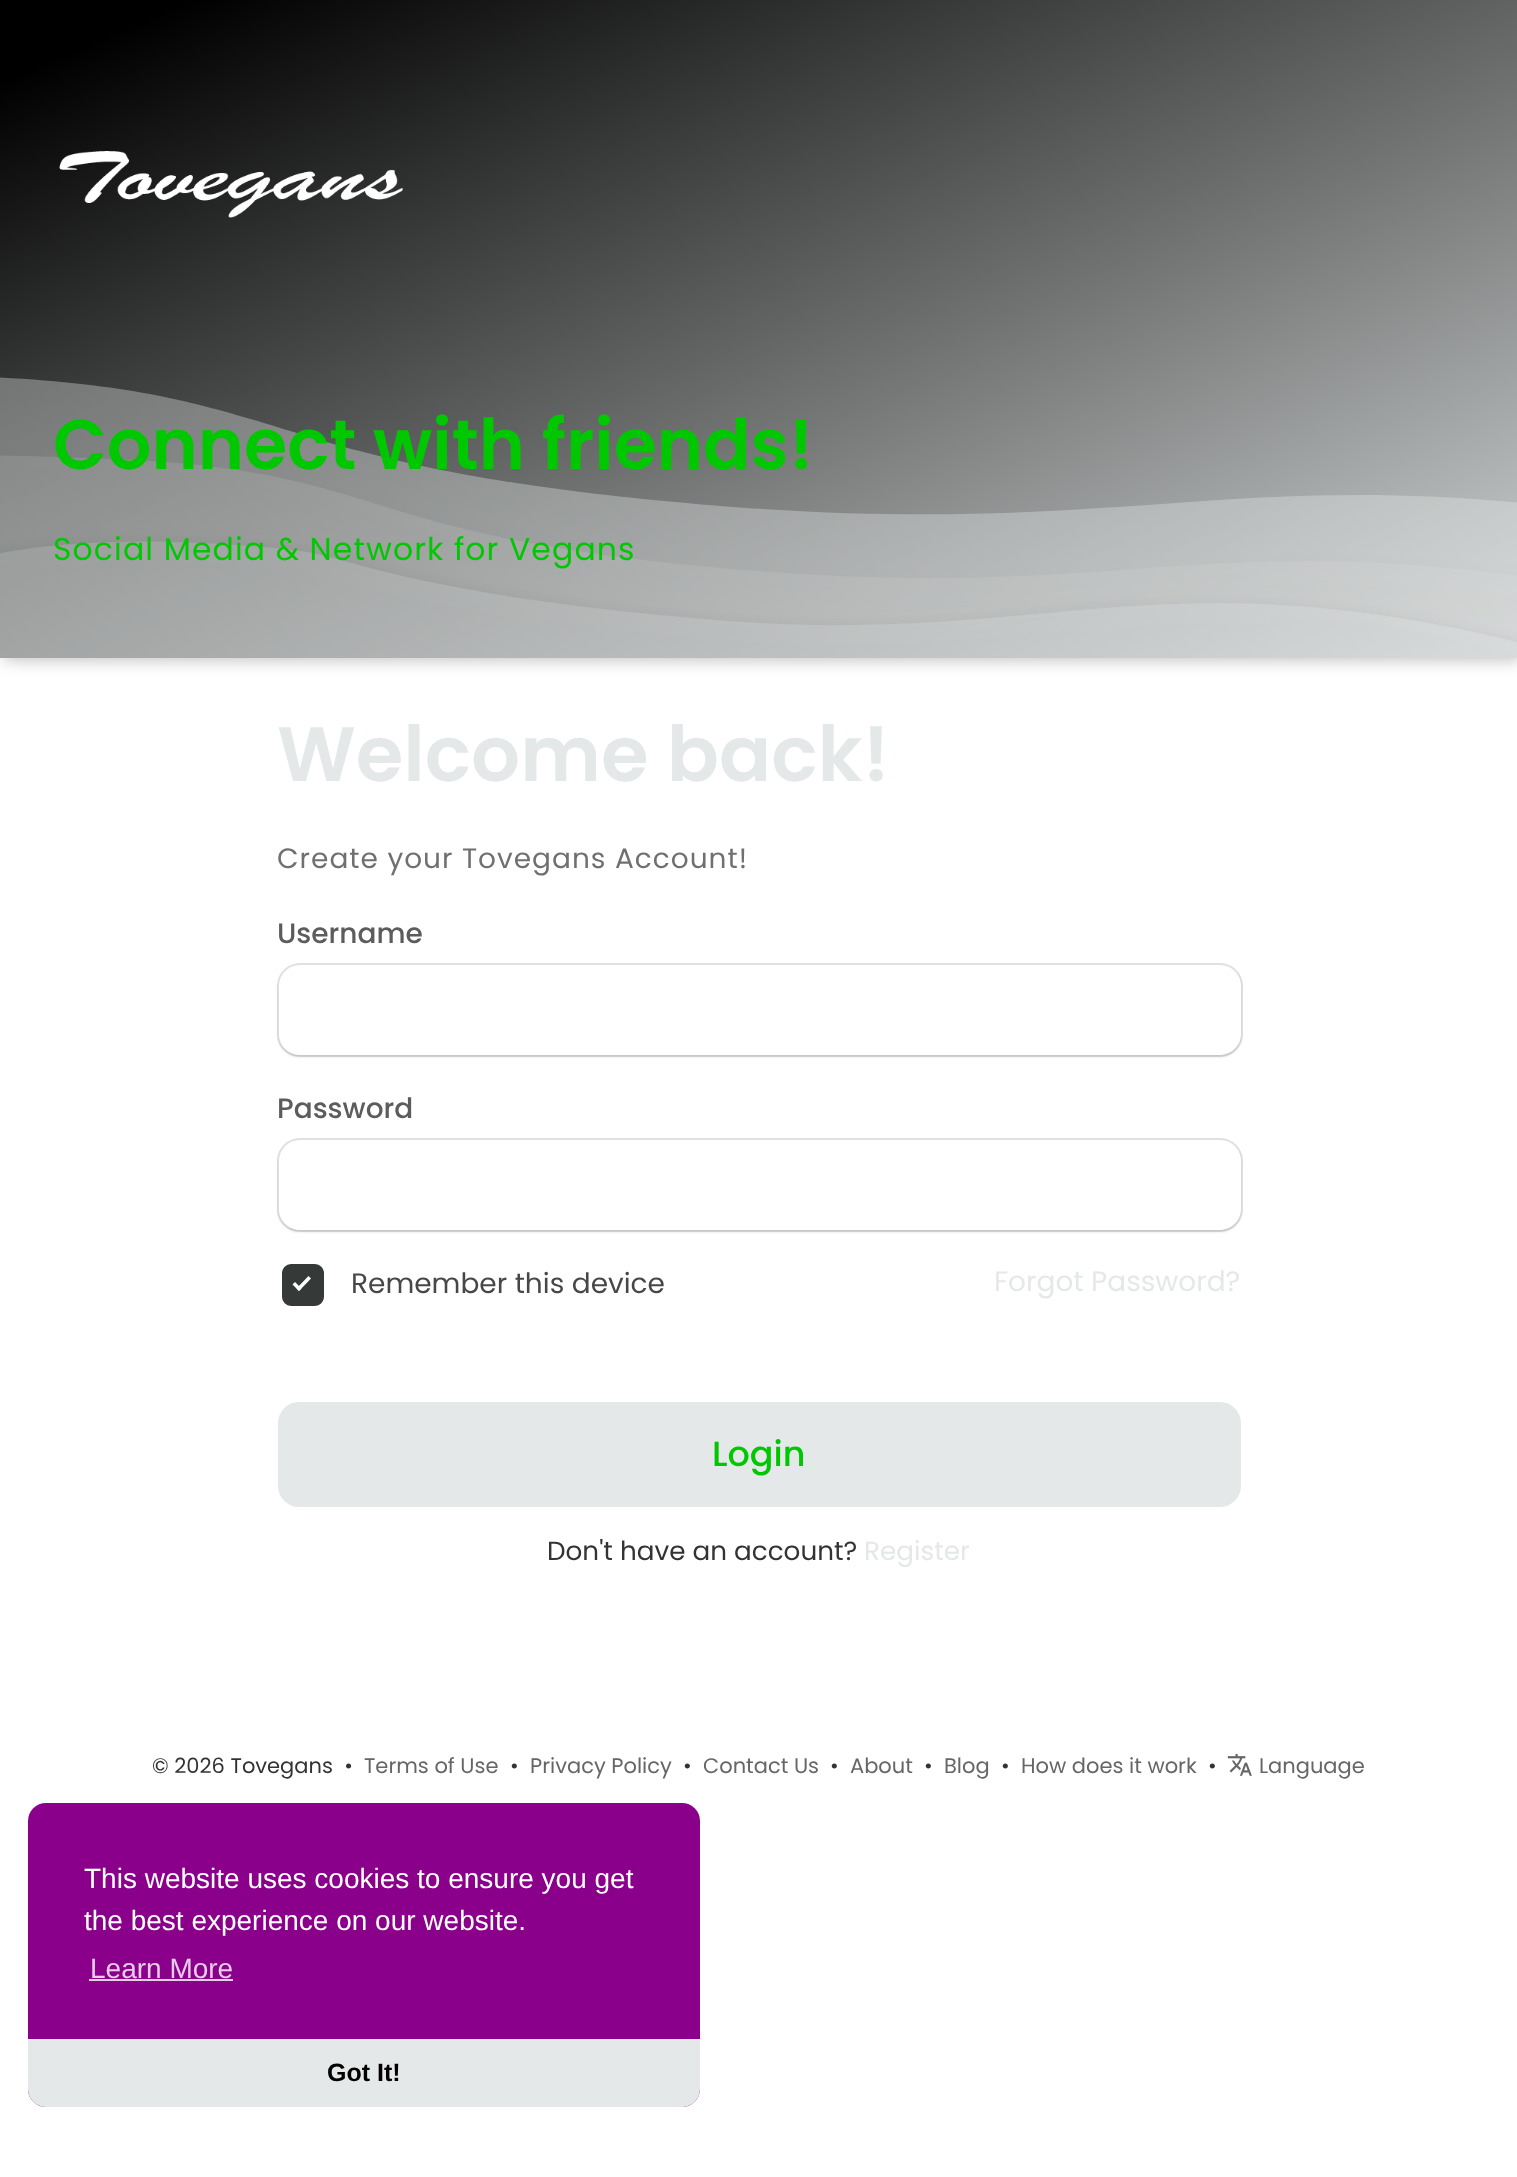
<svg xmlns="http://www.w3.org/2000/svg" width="1517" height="2177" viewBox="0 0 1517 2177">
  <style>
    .t1 { font: 600 70px Poppins; fill: #00c800; }
    .t2 { font: 31.5px Poppins; letter-spacing: 1.1px; fill: #00c800; }
    .t3 { font: 600 77px Poppins; fill: #e4e8e8; }
    .t4 { font: 28px Poppins; letter-spacing: 1px; fill: #707070; }
    .t5 { font: 500 28px Poppins; fill: #5c5c5c; }
    .t6 { font: 28px Poppins; fill: #474747; }
    .t7 { font: 28px Poppins; fill: #e4e8e8; }
    .t8 { font: 500 35px Poppins; fill: #00c800; }
    .t9 { font: 26.25px Poppins; fill: #333; }
    .t10 { font: 26.25px Poppins; fill: #e4e8e8; }
    .t11 { font: 21px Poppins; fill: #333; }
    .t12 { font: 21px Poppins; fill: #666; }
    .t13 { font: 28px Liberation Sans; fill: #fff; }
    .t14 { font: 28px Liberation Sans; fill: #e8cce8; }
    .t15 { font: bold 25px Liberation Sans; fill: #000; }
  </style>
  <defs>
    <clipPath id="clip1"><path d="M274 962H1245V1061H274ZM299 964H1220C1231.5 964 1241 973.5 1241 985V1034C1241 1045.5 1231.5 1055 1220 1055H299C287.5 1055 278 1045.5 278 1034V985C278 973.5 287.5 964 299 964Z" clip-rule="evenodd"/></clipPath>
    <clipPath id="clip2"><path d="M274 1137H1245V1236H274ZM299 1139H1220C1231.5 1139 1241 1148.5 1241 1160V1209C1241 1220.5 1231.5 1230 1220 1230H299C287.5 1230 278 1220.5 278 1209V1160C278 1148.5 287.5 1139 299 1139Z" clip-rule="evenodd"/></clipPath>
  </defs>
  <rect width="100%" height="100%" fill="#fff"/>
  <rect x="4" y="0" width="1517" height="658" fill="#0000004d" filter="blur(9px)"/>
  <image x="0" y="0" width="1517" height="658" href="images/1.png"/>
  <image x="59" y="151" width="344" height="67" href="images/2.png"/>
  <text x="53" y="469" class="t1">Connect with friends!</text>
  <text x="53" y="560" class="t2">Social Media &amp; Network for Vegans</text>
  <text x="277" y="781" class="t3">Welcome back!</text>
  <text x="277" y="868" class="t4">Create your Tovegans Account!</text>
  <text x="277" y="943" class="t5">Username</text>
  <g clip-path="url(#clip1)">
    <rect x="278" y="966" width="963" height="91" rx="21" fill="#0000001f" filter="blur(1px)"/>
  </g>
  <rect x="278" y="964" width="964" height="92" rx="22" fill="none" stroke="#3c425729" stroke-width="2"/>
  <text x="277" y="1118" class="t5">Password</text>
  <g clip-path="url(#clip2)">
    <rect x="278" y="1141" width="963" height="91" rx="21" fill="#0000001f" filter="blur(1px)"/>
  </g>
  <rect x="278" y="1139" width="964" height="92" rx="22" fill="none" stroke="#3c425729" stroke-width="2"/>
  <rect x="284" y="1266" width="38" height="38" rx="7" fill="#353938" stroke="#353938" stroke-width="4"/>
  <text x="351" y="1293" class="t6">Remember this device</text>
  <path d="M296.5 1288.5L308.5 1276L311 1278.5L299 1291Z" fill="#fff"/>
  <path d="M292.5 1284.5L295 1282L301.5 1288.5L299 1291Z" fill="#fff"/>
  <text x="994" y="1291" class="t7">Forgot Password?</text>
  <rect x="278" y="1402" width="963" height="105" rx="21" fill="#e4e8e8"/>
  <text x="712" y="1466" class="t8">Login</text>
  <text x="547" y="1560" class="t9">Don't have an account?</text>
  <text x="864" y="1560" class="t10">Register</text>
  <text x="152" y="1773" class="t11" xml:space="preserve">© 2026 Tovegans  •</text>
  <text x="364" y="1773" class="t12">Terms of Use</text>
  <text x="510" y="1773" class="t11">•</text>
  <text x="530" y="1773" class="t12">Privacy Policy</text>
  <text x="683" y="1773" class="t11">•</text>
  <text x="703" y="1773" class="t12">Contact Us</text>
  <text x="830" y="1773" class="t11">•</text>
  <text x="850" y="1773" class="t12">About</text>
  <text x="924" y="1773" class="t11">•</text>
  <text x="944" y="1773" class="t12">Blog</text>
  <text x="1001" y="1773" class="t11">•</text>
  <text x="1021" y="1773" class="t12">How does it work</text>
  <text x="1208" y="1773" class="t11">•</text>
  <image x="1227" y="1753" width="25" height="23" href="images/3.png"/>
  <text x="1259" y="1773" class="t12">Language</text>
  <rect x="28" y="1803" width="672" height="304" rx="18" fill="#8b008b"/>
  <text x="84" y="1888" class="t13">This website uses cookies to ensure you get</text>
  <text x="84" y="1930" class="t13">the best experience on our website.</text>
  <text x="90" y="1978" class="t14">Learn More</text>
  <rect x="89" y="1979" width="144" height="2" fill="#e8cce8"/>
  <path d="M28 2039H700V2089C700 2099 692 2107 682 2107H46C36 2107 28 2099 28 2089Z" fill="#e4e8e8"/>
  <text x="327" y="2081" class="t15">Got It!</text>
</svg>
